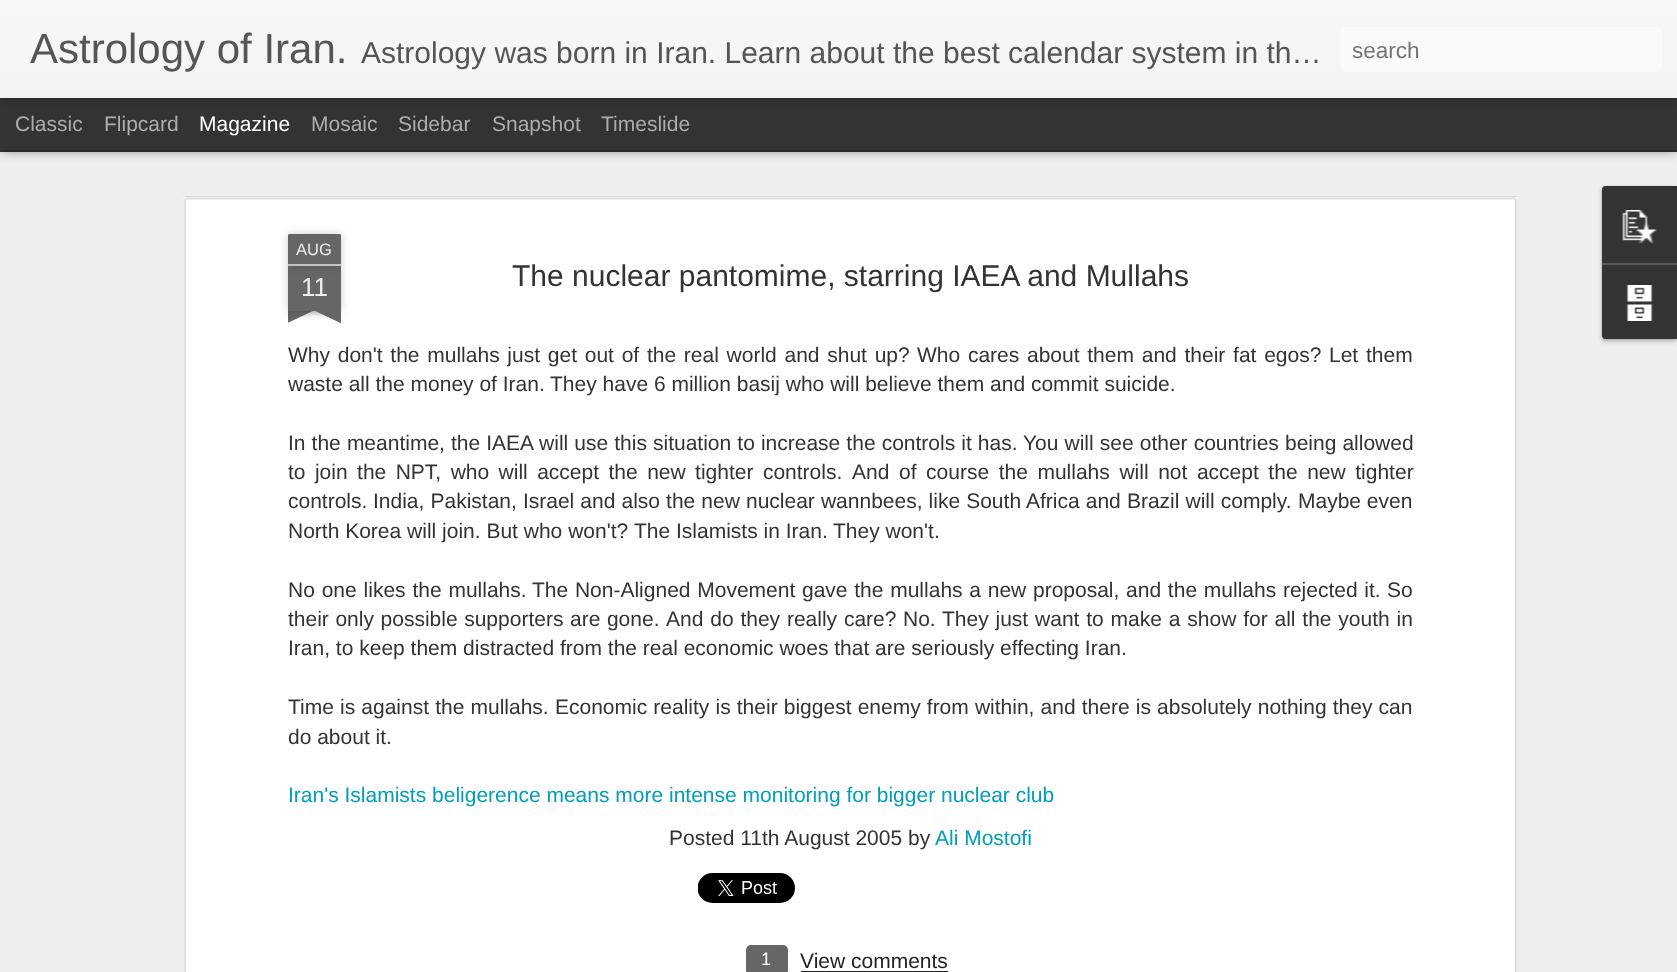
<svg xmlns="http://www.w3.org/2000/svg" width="1677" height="972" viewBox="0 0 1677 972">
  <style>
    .t1 { font: 42px Liberation Sans; fill: #555; }
    .t2 { font: 30px Liberation Sans; fill: #555; }
    .t3 { font: 22.5px Liberation Sans; fill: #757575; }
    .t4 { font: 21px Liberation Sans; fill: #adadad; }
    .t5 { font: 21px Liberation Sans; fill: #fff; }
    .t6 { font: 16.5px Liberation Sans; fill: #eee; }
    .t7 { font: 26px Liberation Sans; fill: #eee; }
    .t8 { font: 30px Liberation Sans; fill: #333; }
    .t9 { font: 21px Liberation Sans; fill: #333; }
    .t10 { font: 21px Liberation Sans; fill: #009eb8; }
    .t11 { font: 18px Liberation Sans; fill: #fff; }
    .t12 { font: 21px Liberation Sans; fill: #222; }
  </style>
  <defs>
    <linearGradient id="g1" gradientUnits="userSpaceOnUse" x1="0" y1="0" x2="0" y2="98"><stop offset="0" stop-color="#f7f7f7"/><stop offset="1" stop-color="#f4f4f4"/></linearGradient>
    <clipPath id="clip1"><rect x="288" y="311" width="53" height="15"/></clipPath>
    <clipPath id="clip2"><rect x="288" y="311" width="53" height="15"/></clipPath>
  </defs>
  <rect width="100%" height="100%" fill="#333"/>
  <rect x="0" y="152" width="1677" height="820" fill="#eee"/>
  <rect x="0" y="98" width="1677" height="52" fill="#00000080" filter="blur(6px)"/>
  <rect x="0" y="98" width="1677" height="52" fill="#333"/>
  <rect x="0" y="0" width="1677" height="98" fill="#0000004d" filter="blur(4px)"/>
  <rect x="0" y="0" width="1677" height="98" fill="url(#g1)"/>
  <text x="30" y="63" class="t1">Astrology of Iran.</text>
  <text x="361" y="63" class="t2">Astrology was born in Iran. Learn about the best calendar system in th…</text>
  <rect x="1341" y="27" width="321" height="45" rx="5" fill="#fafafa"/>
  <text x="1352" y="58" class="t3">search</text>
  <text x="15" y="131" class="t4">Classic</text>
  <text x="104" y="131" class="t4">Flipcard</text>
  <text x="199" y="131" class="t5">Magazine</text>
  <text x="311" y="131" class="t4">Mosaic</text>
  <text x="398" y="131" class="t4">Sidebar</text>
  <text x="492" y="131" class="t4">Snapshot</text>
  <text x="601" y="131" class="t4">Timeslide</text>
  <rect x="183" y="197" width="1335" height="775" fill="#fff"/>
  <image x="183" y="196" width="1335" height="776" href="images/1.png"/>
  <rect x="288" y="266" width="53" height="45" fill="#00000033" filter="blur(4px)"/>
  <rect x="288" y="266" width="53" height="45" fill="#666"/>
  <rect x="288" y="234" width="53" height="32" rx="1.5" fill="#00000033" filter="blur(4px)"/>
  <path d="M289.5 234H339.5C340.5 234 341 234.5 341 235.5V266H288V235.5C288 234.5 288.5 234 289.5 234Z" fill="#666"/>
  <rect x="288" y="264" width="53" height="2" fill="#c2c2c2"/>
  <text x="296" y="255" class="t6">AUG</text>
  <text x="301" y="296" class="t7">11</text>
  <g clip-path="url(#clip1)">
    <rect x="275" y="296" width="75" height="15" fill="#00000033" filter="blur(4px)"/>
  </g>
  <g clip-path="url(#clip2)">
    <path d="M275 312L343 280L349 294L281 326Z" fill="#666"/>
  </g>
  <g clip-path="url(#clip1)">
    <rect x="279" y="296" width="75" height="15" fill="#00000033" filter="blur(4px)"/>
  </g>
  <g clip-path="url(#clip2)">
    <path d="M286 280L354 312L347 326L279 294Z" fill="#666"/>
  </g>
  <text x="512" y="286" class="t8">The nuclear pantomime, starring IAEA and Mullahs</text>
  <text x="288" y="362" word-spacing="1.9" class="t9">Why don't the mullahs just get out of the real world and shut up?</text>
  <text x="917" y="362" word-spacing="1.9" class="t9">Who cares about them and their fat egos?</text>
  <text x="1329" y="362" word-spacing="2" class="t9">Let them</text>
  <text x="288" y="391" class="t9">waste all the money of Iran.</text>
  <text x="550" y="391" class="t9">They have 6 million basij who will believe them and commit suicide.</text>
  <text x="288" y="450" word-spacing="0.25" class="t9">In the meantime, the IAEA will use this situation to increase the controls it has.</text>
  <text x="1023" y="450" word-spacing="0.25" class="t9">You will see other countries being allowed</text>
  <text x="288" y="479" word-spacing="3.6" class="t9">to join the NPT, who will accept the new tighter controls.</text>
  <text x="852" y="479" word-spacing="3.75" class="t9">And of course the mullahs will not accept the new tighter</text>
  <text x="288" y="508" class="t9">controls.</text>
  <text x="373" y="508" word-spacing="0.25" class="t9">India, Pakistan, Israel and also the new nuclear wannbees, like South Africa and Brazil will comply.</text>
  <text x="1298" y="508" class="t9">Maybe even</text>
  <text x="288" y="538" class="t9">North Korea will join. But who won't?</text>
  <text x="634" y="538" class="t9">The Islamists in Iran.</text>
  <text x="833" y="538" class="t9">They won't.</text>
  <text x="288" y="597" word-spacing="1" class="t9">No one likes the mullahs.</text>
  <text x="532" y="597" word-spacing="0.9" class="t9">The Non-Aligned Movement gave the mullahs a new proposal, and the mullahs rejected it.</text>
  <text x="1387" y="597" class="t9">So</text>
  <text x="288" y="626" word-spacing="0.75" class="t9">their only possible supporters are gone.</text>
  <text x="666" y="626" word-spacing="1" class="t9">And do they really care?</text>
  <text x="903" y="626" class="t9">No.</text>
  <text x="942" y="626" word-spacing="1" class="t9">They just want to make a show for all the youth in</text>
  <text x="288" y="655" class="t9">Iran, to keep them distracted from the real economic woes that are seriously effecting Iran.</text>
  <text x="288" y="714" word-spacing="0.3" class="t9">Time is against the mullahs.</text>
  <text x="555" y="714" word-spacing="0.3" class="t9">Economic reality is their biggest enemy from within, and there is absolutely nothing they can</text>
  <text x="288" y="744" class="t9">do about it.</text>
  <text x="288" y="802" class="t10">Iran's Islamists beligerence means more intense monitoring for bigger nuclear club</text>
  <text x="669" y="845" class="t9">Posted 11th August 2005</text>
  <text x="908" y="845" class="t9">by</text>
  <text x="935" y="845" class="t10">Ali Mostofi</text>
  <image x="698" y="873" width="97" height="30" href="images/2.png"/>
  <rect x="747" y="946" width="40" height="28" rx="4" fill="#666" stroke="#666" stroke-width="2"/>
  <text x="761" y="965" class="t11">1</text>
  <text x="800" y="968" class="t12">View comments</text>
  <rect x="801" y="971" width="147" height="1" fill="#222"/>
  <rect x="1602" y="188" width="75" height="153" rx="3" fill="#0000004d" filter="blur(2px)"/>
  <path d="M1605 186H1677V263H1602V189C1602 187.5 1603.5 186 1605 186Z" fill="#333"/>
  <image x="1622" y="210" width="35" height="33" href="images/3.png"/>
  <path d="M1602 263H1677V339H1605C1603.5 339 1602 337.5 1602 336Z" fill="#333"/>
  <rect x="1602" y="263" width="75" height="2" fill="#585858"/>
  <image x="1626" y="285" width="27" height="36" href="images/4.png"/>
</svg>
